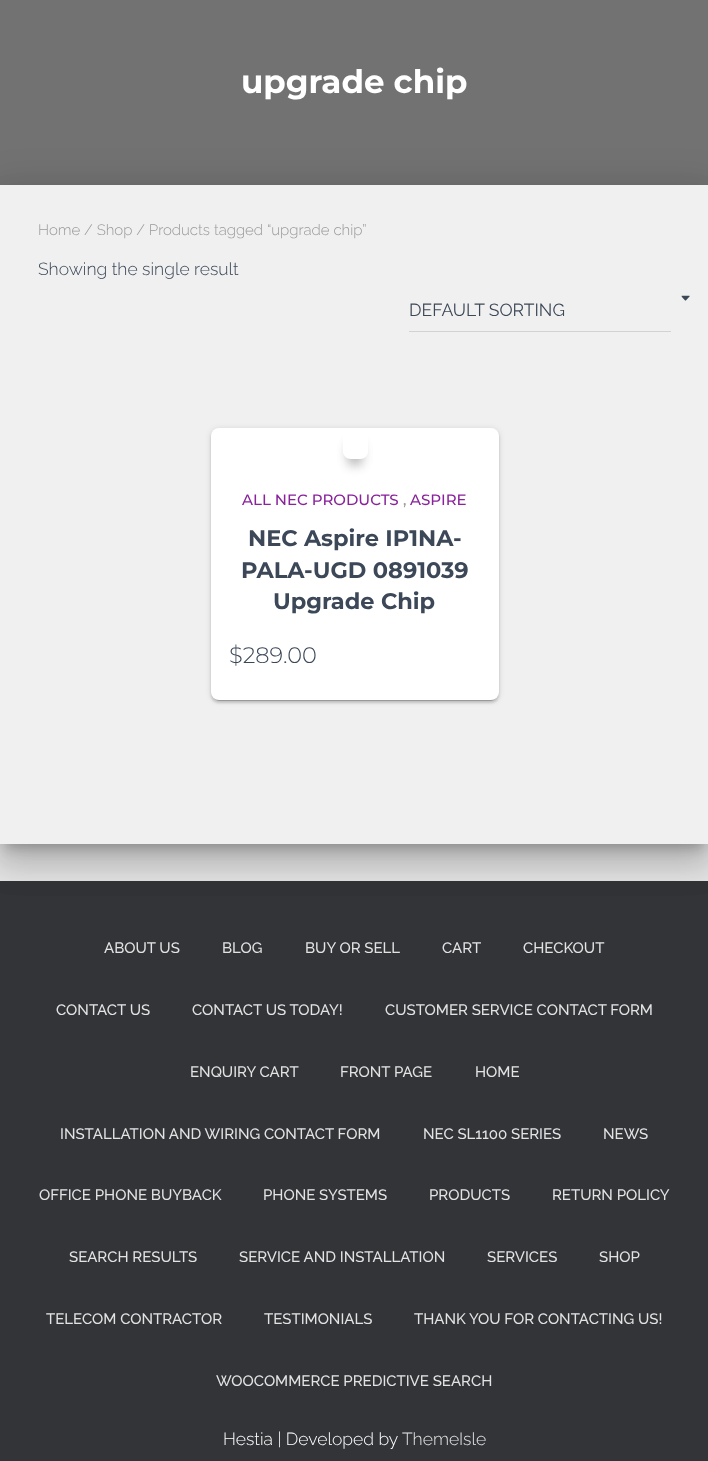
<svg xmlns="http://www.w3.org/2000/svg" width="708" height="1461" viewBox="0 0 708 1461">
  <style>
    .t1 { font: bold 32.5px Montserrat; fill: #fff; }
    .t2 { font: 300 15px Raleway; fill: #999; }
    .t3 { font: 300 17.5px Raleway; fill: #3c4858; }
    .t4 { font: 17.5px Raleway; fill: #3c4858; }
    .t5 { font: 500 15px Montserrat; fill: #89229b; }
    .t6 { font: 500 15px Montserrat; fill: #999; }
    .t7 { font: bold 22.5px Montserrat; fill: #3c4858; }
    .t8 { font: 300 22.5px Montserrat; fill: #3c4858; }
    .t9 { font: 500 15px Raleway; fill: #e2e3e3; }
    .t10 { font: 300 17.5px Raleway; fill: #fff; }
    .t11 { font: 300 17.5px Raleway; fill: #e2e3e3; }
  </style>
  <defs>
    <clipPath id="clip1"><path d="M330 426H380V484H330ZM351 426H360C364.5 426 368 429.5 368 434V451C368 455.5 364.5 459 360 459H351C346.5 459 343 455.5 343 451V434C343 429.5 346.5 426 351 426Z" clip-rule="evenodd"/></clipPath>
    <clipPath id="clip2"><path d="M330 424H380V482H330ZM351 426H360C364.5 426 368 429.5 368 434V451C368 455.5 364.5 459 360 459H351C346.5 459 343 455.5 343 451V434C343 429.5 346.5 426 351 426Z" clip-rule="evenodd"/></clipPath>
  </defs>
  <rect width="100%" height="100%" fill="#e5e5e5"/>
  <rect x="0" y="0" width="708" height="185" fill="#727272"/>
  <text x="241" y="93" class="t1">upgrade chip</text>
  <rect x="6" y="201" width="697" height="647" fill="#00000033" filter="blur(6px)"/>
  <rect x="0" y="881" width="708" height="580" fill="#323437"/>
  <rect x="-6" y="186" width="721" height="672" fill="#0000001f" filter="blur(19px)"/>
  <rect x="-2" y="203" width="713" height="663" fill="#00000024" filter="blur(15px)"/>
  <rect x="0" y="185" width="708" height="659" fill="#f0f0f0"/>
  <text x="38" y="235" class="t2">Home / Shop / Products tagged “upgrade chip”</text>
  <text x="38" y="275" class="t3">Showing the single result</text>
  <image x="681" y="295" width="9" height="6" href="images/1.png"/>
  <rect x="409" y="331" width="262" height="1" fill="#d2d2d2"/>
  <text x="409" y="316" class="t4">DEFAULT SORTING</text>
  <rect x="211" y="429" width="288" height="272" rx="8" fill="#0000001f" filter="blur(3px)"/>
  <rect x="214" y="434" width="282" height="267" rx="5" fill="#00000033" filter="blur(0.5px)"/>
  <rect x="211" y="430" width="288" height="273" rx="8" fill="#00000024" filter="blur(1px)"/>
  <rect x="211" y="428" width="288" height="272" rx="8" fill="#fff"/>
  <g clip-path="url(#clip1)">
    <rect x="349" y="445" width="12" height="20" rx="1" fill="#00000033" filter="blur(6px)"/>
  </g>
  <g clip-path="url(#clip2)">
    <rect x="349" y="443" width="12" height="20" rx="1" fill="#00000033" filter="blur(6px)"/>
  </g>
  <text x="242" y="505" class="t5">ALL NEC PRODUCTS</text>
  <text x="403" y="505" class="t6">,</text>
  <text x="410" y="505" class="t5">ASPIRE</text>
  <text x="248" y="546" class="t7">NEC Aspire IP1NA-</text>
  <text x="241" y="578" class="t7">PALA-UGD 0891039</text>
  <text x="273" y="609" class="t7">Upgrade Chip</text>
  <text x="229" y="663" class="t8">$289.00</text>
  <text x="104" y="953" class="t9">ABOUT US</text>
  <text x="222" y="953" class="t9">BLOG</text>
  <text x="305" y="953" class="t9">BUY OR SELL</text>
  <text x="442" y="953" class="t9">CART</text>
  <text x="523" y="953" class="t9">CHECKOUT</text>
  <text x="56" y="1015" class="t9">CONTACT US</text>
  <text x="192" y="1015" class="t9">CONTACT US TODAY!</text>
  <text x="385" y="1015" class="t9">CUSTOMER SERVICE CONTACT FORM</text>
  <text x="190" y="1077" class="t9">ENQUIRY CART</text>
  <text x="340" y="1077" class="t9">FRONT PAGE</text>
  <text x="475" y="1077" class="t9">HOME</text>
  <text x="60" y="1139" class="t9">INSTALLATION AND WIRING CONTACT FORM</text>
  <text x="423" y="1139" class="t9">NEC SL1100 SERIES</text>
  <text x="603" y="1139" class="t9">NEWS</text>
  <text x="39" y="1200" class="t9">OFFICE PHONE BUYBACK</text>
  <text x="263" y="1200" class="t9">PHONE SYSTEMS</text>
  <text x="429" y="1200" class="t9">PRODUCTS</text>
  <text x="552" y="1200" class="t9">RETURN POLICY</text>
  <text x="69" y="1262" class="t9">SEARCH RESULTS</text>
  <text x="239" y="1262" class="t9">SERVICE AND INSTALLATION</text>
  <text x="487" y="1262" class="t9">SERVICES</text>
  <text x="599" y="1262" class="t9">SHOP</text>
  <text x="46" y="1324" class="t9">TELECOM CONTRACTOR</text>
  <text x="264" y="1324" class="t9">TESTIMONIALS</text>
  <text x="414" y="1324" class="t9">THANK YOU FOR CONTACTING US!</text>
  <text x="216" y="1386" class="t9">WOOCOMMERCE PREDICTIVE SEARCH</text>
  <text x="223" y="1445" class="t10">Hestia | Developed by</text>
  <text x="402" y="1445" class="t11">ThemeIsle</text>
</svg>
